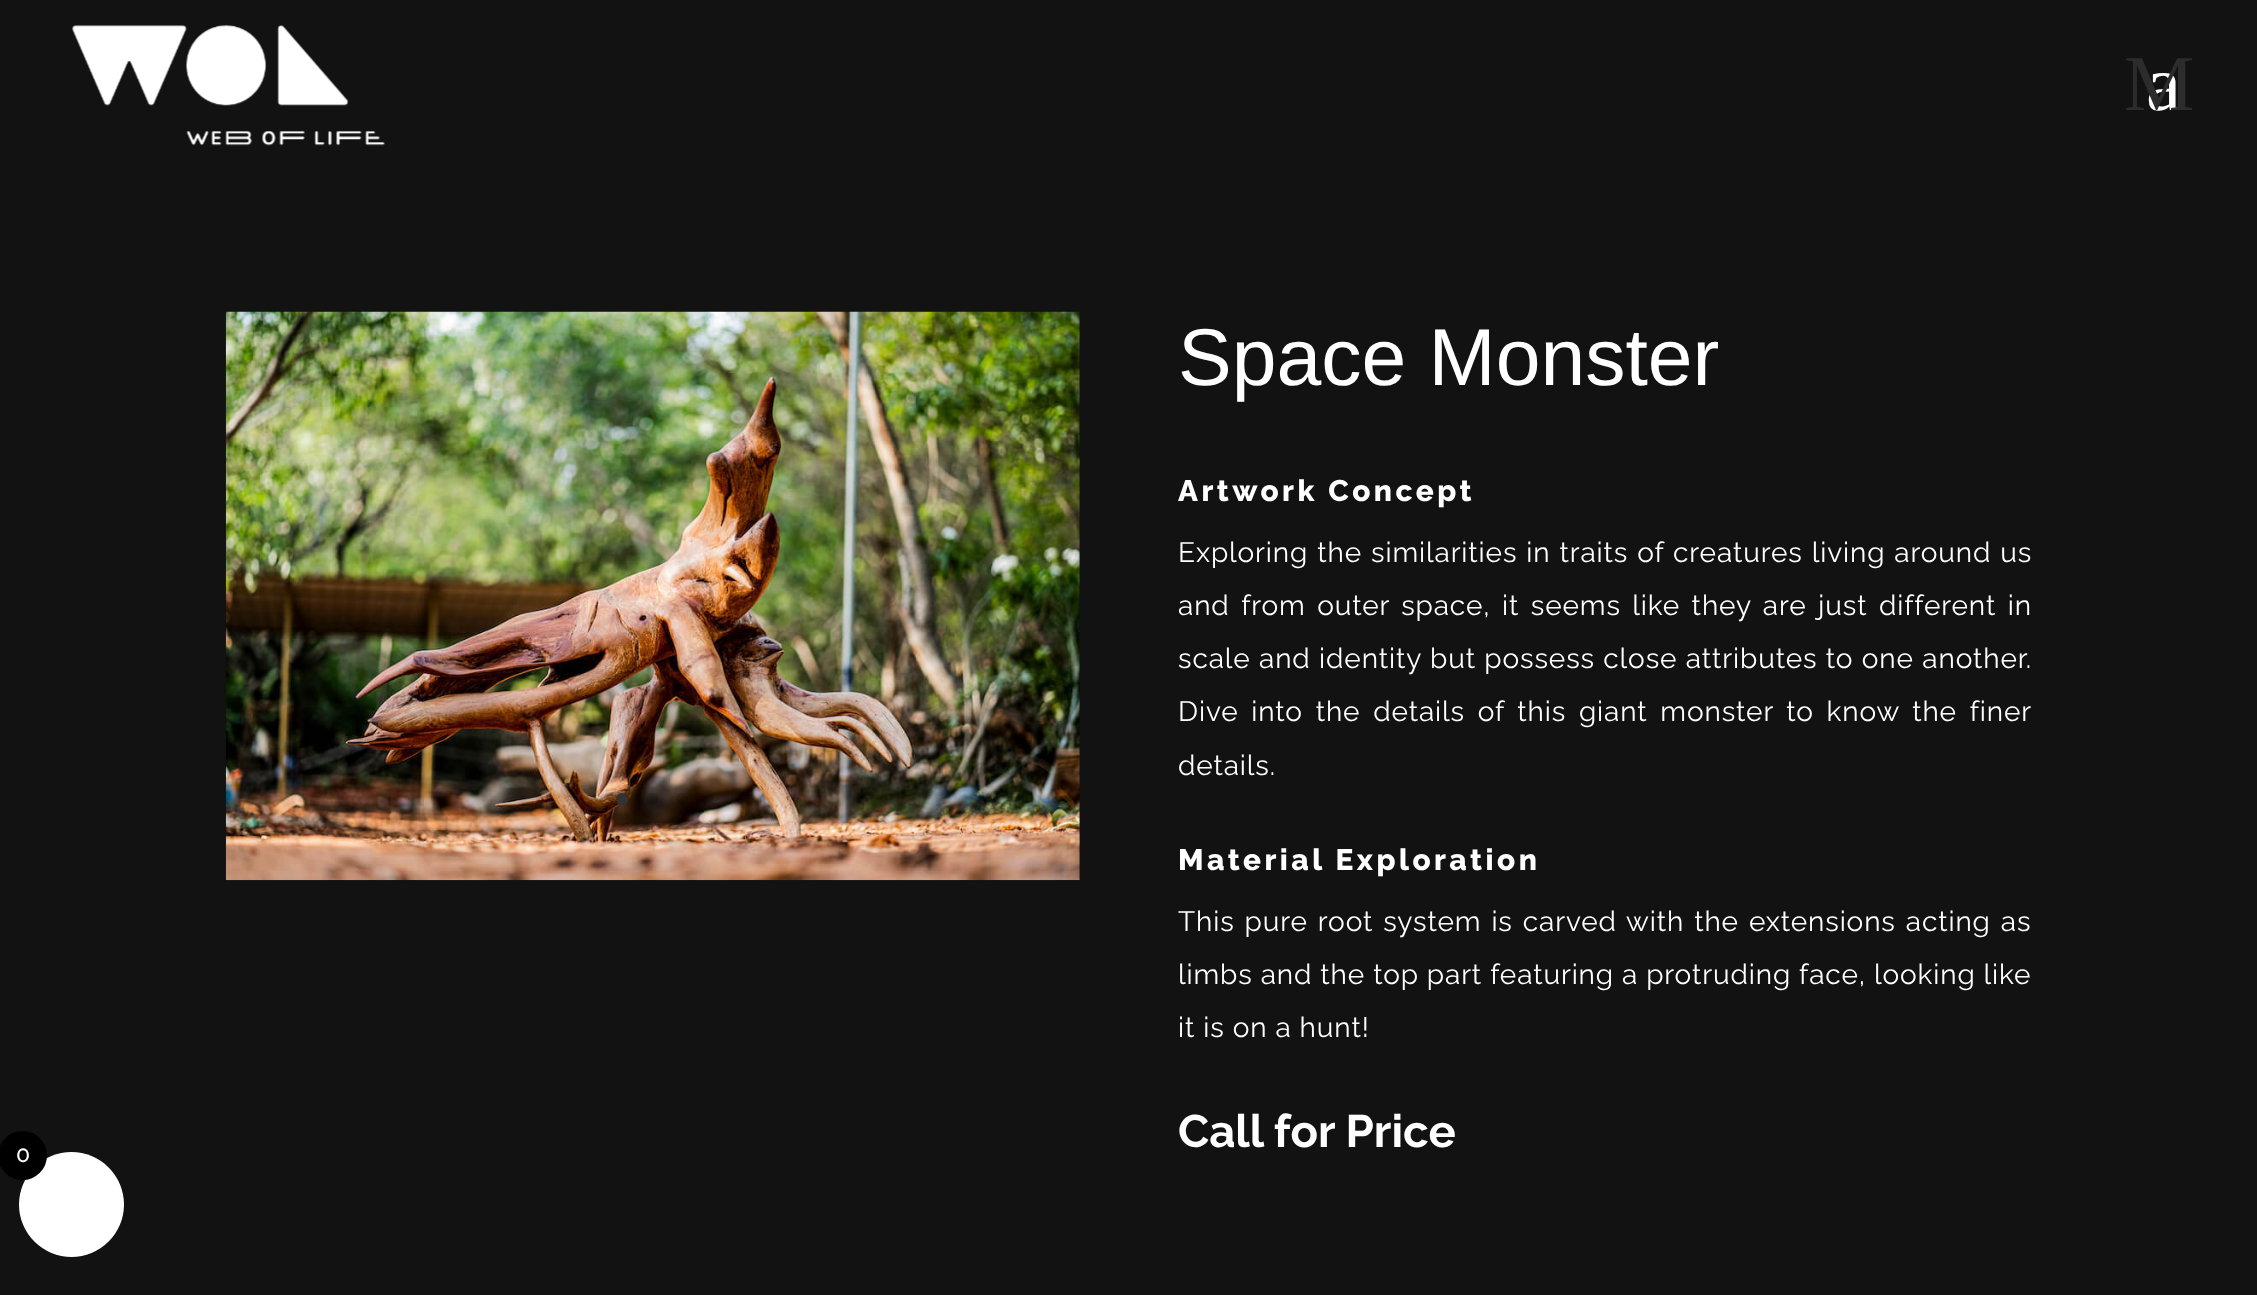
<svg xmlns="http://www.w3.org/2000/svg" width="2257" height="1295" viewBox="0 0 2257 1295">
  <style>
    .t1 { font: 79px Liberation Serif; fill: #fff; }
    .t2 { font: 79px Liberation Serif; fill: #2c2c2c; }
    .t3 { font: 80.5px Liberation Sans; fill: #fff; }
    .t4 { font: 100 29.75px Raleway; letter-spacing: 3.5px; fill: #fff; }
    .t5 { font: 100 28px 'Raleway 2'; letter-spacing: 0.88px; fill: #fff; }
    .t6 { font: 100 45.5px 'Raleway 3'; fill: #fff; }
    .t7 { font: 100 23px 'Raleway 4'; fill: #fff; }
  </style>
  <rect width="100%" height="100%" fill="#121212"/>
  <image x="72" y="25" width="313" height="121" href="images/1.png"/>
  <text x="2146" y="110" class="t1">a</text>
  <text x="2124" y="110" class="t2">M</text>
  <image x="225" y="311" width="855" height="570" href="images/2.png"/>
  <circle cx="622" cy="799" r="6" fill="#333"/>
  <circle cx="652" cy="799" r="6" fill="#00000026"/>
  <circle cx="682" cy="799" r="6" fill="#00000026"/>
  <text x="1178" y="385" class="t3">Space Monster</text>
  <text x="1178" y="501" class="t4">Artwork Concept</text>
  <text x="1178" y="562" word-spacing="1" class="t5">Exploring the similarities in traits of creatures living around us</text>
  <text x="1178" y="615" word-spacing="3.5" class="t5">and from outer space, it seems like they are just different in</text>
  <text x="1178" y="668" word-spacing="0.4" class="t5">scale and identity but possess close attributes to one another.</text>
  <text x="1178" y="721" word-spacing="4.75" class="t5">Dive into the details of this giant monster to know the finer</text>
  <text x="1178" y="775" class="t5">details.</text>
  <text x="1178" y="870" class="t4">Material Exploration</text>
  <text x="1178" y="931" word-spacing="2" class="t5">This pure root system is carved with the extensions acting as</text>
  <text x="1178" y="984" class="t5">limbs and the top part featuring a protruding face, looking like</text>
  <text x="1178" y="1037" class="t5">it is on a hunt!</text>
  <text x="1178" y="1147" class="t6">Call for Price</text>
  <circle cx="71.5" cy="1204.5" r="52.5" fill="#fff"/>
  <circle cx="22.5" cy="1155.5" r="24.5" fill="#000"/>
  <text x="16" y="1162" class="t7">0</text>
</svg>
